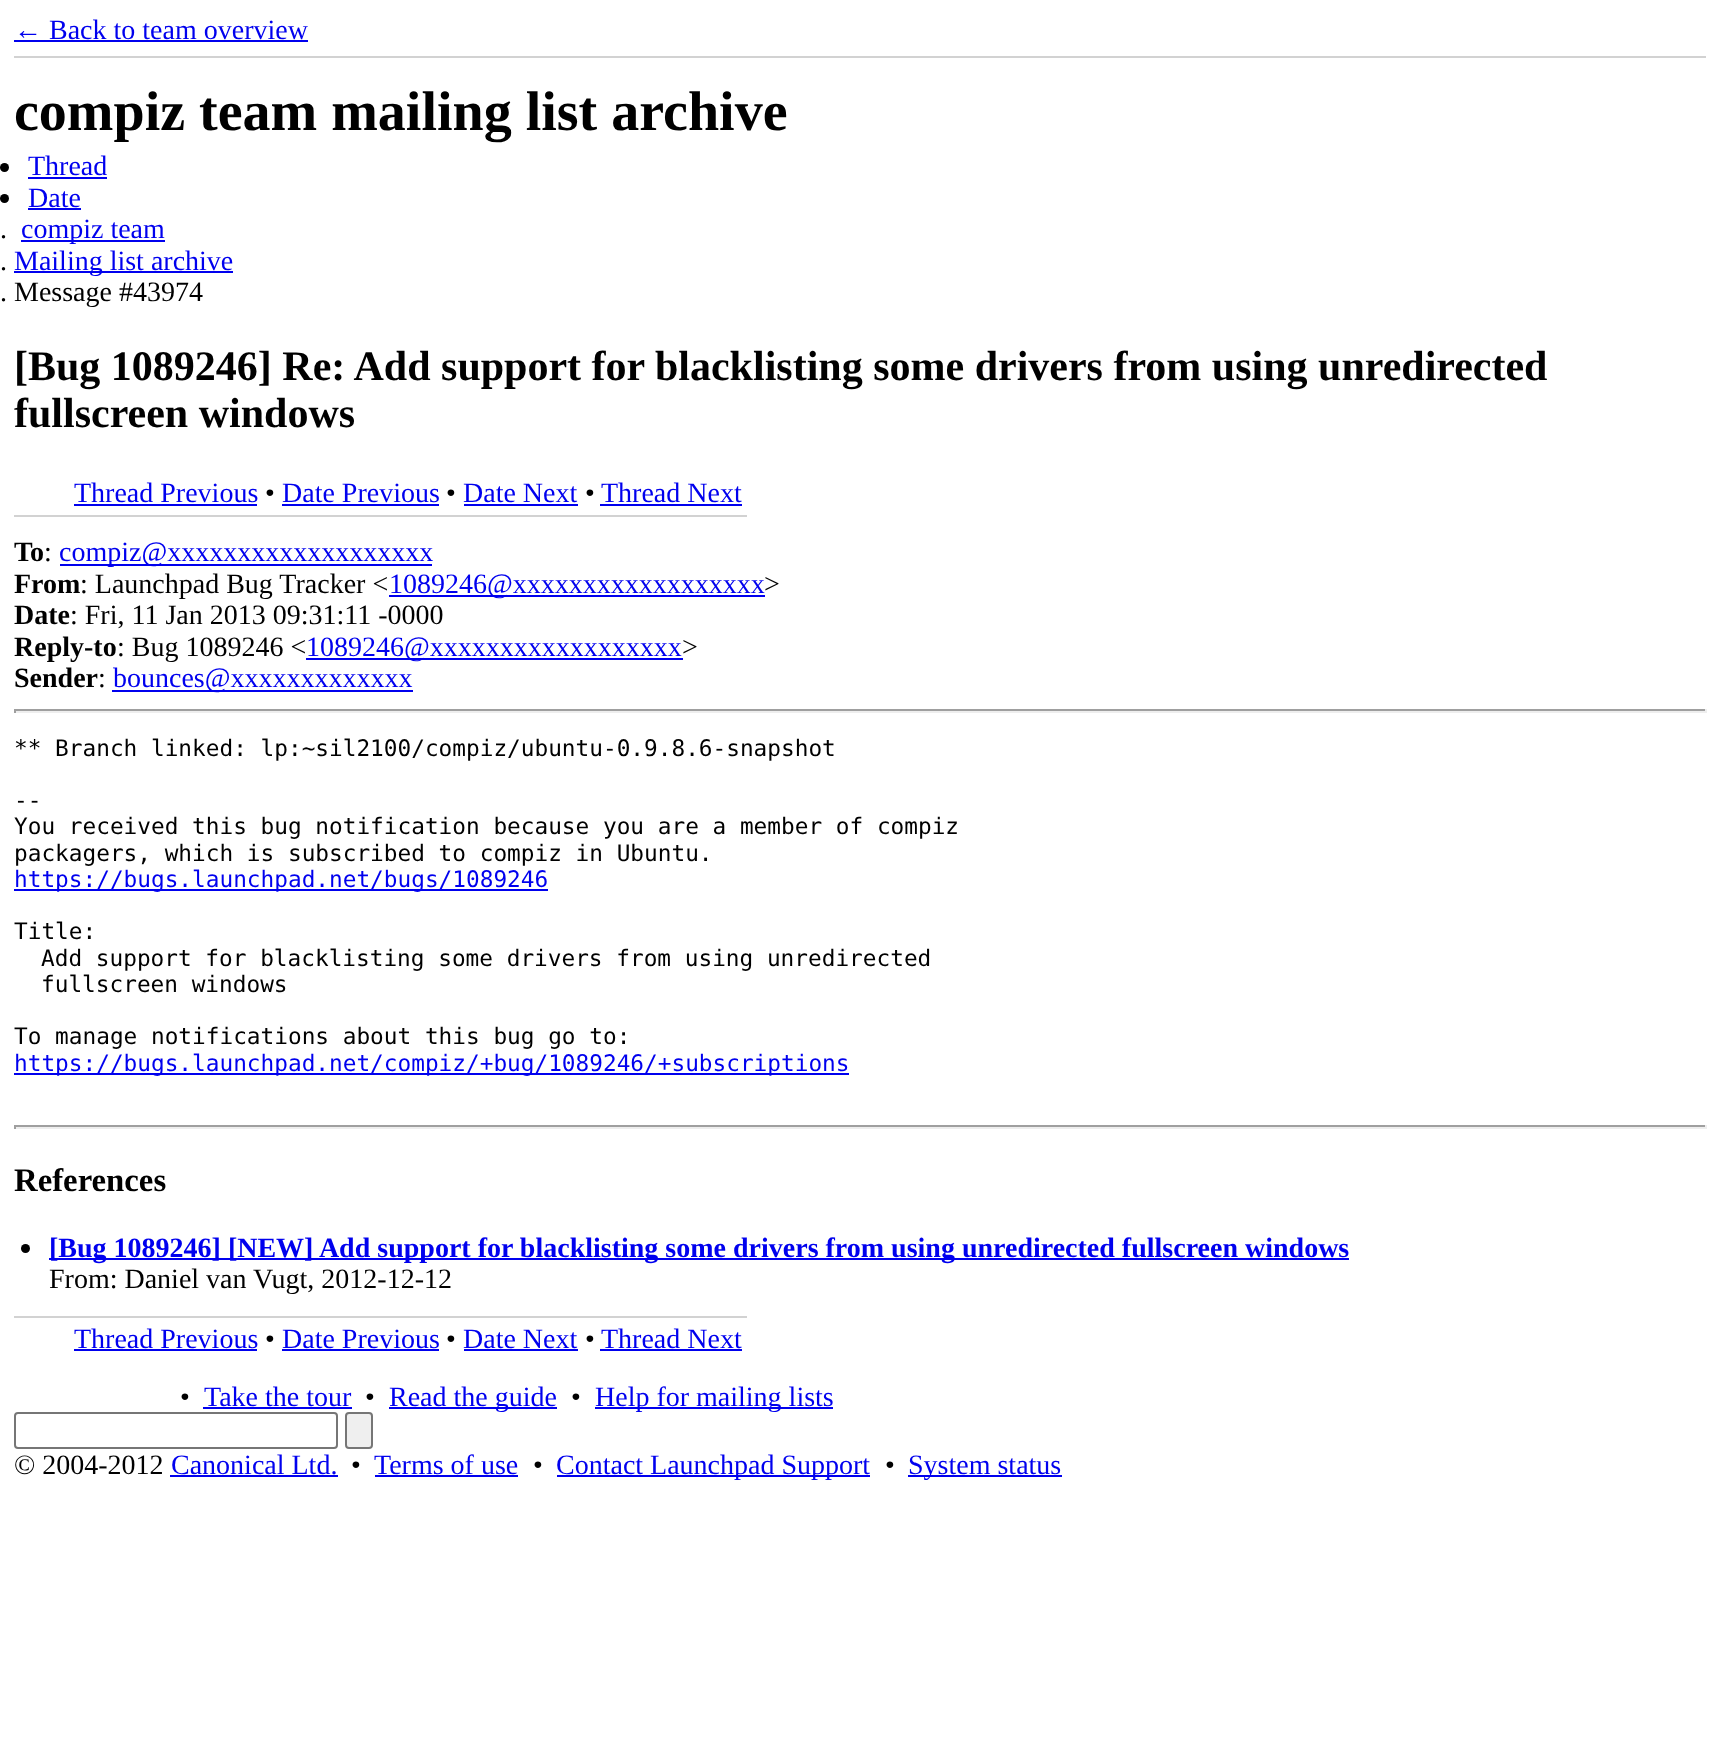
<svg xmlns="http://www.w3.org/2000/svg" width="1719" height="1758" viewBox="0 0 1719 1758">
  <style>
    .t1 { font: 28px Liberation Serif; fill: #00e; }
    .t2 { font: bold 56px Liberation Serif; fill: #000; }
    .t3 { font: 28px Liberation Serif; fill: #000; }
    .t4 { font: bold 42px Liberation Serif; fill: #000; }
    .t5 { font: bold 28px Liberation Serif; fill: #000; }
    .t6 { font: 22.75px DejaVu Sans Mono; fill: #000; }
    .t7 { font: 22.75px DejaVu Sans Mono; fill: #00e; }
    .t8 { font: bold 32.75px Liberation Serif; fill: #000; }
    .t9 { font: bold 28px Liberation Serif; fill: #00e; }
  </style>
  <rect width="100%" height="100%" fill="#fff"/>
  <rect x="14" y="56" width="1692" height="2" fill="#d2d2d2"/>
  <text x="14" y="39" class="t1">← Back to team overview</text>
  <rect x="14" y="40" width="294" height="2" fill="#00e"/>
  <text x="14" y="130" class="t2">compiz team mailing list archive</text>
  <circle cx="4.5" cy="167.5" r="4.5" fill="#000"/>
  <text x="28" y="175" class="t1">Thread</text>
  <rect x="28" y="177" width="79" height="2" fill="#00e"/>
  <circle cx="4.5" cy="198.5" r="4.5" fill="#000"/>
  <text x="28" y="207" class="t1">Date</text>
  <rect x="28" y="208" width="53" height="2" fill="#00e"/>
  <text x="0" y="238" class="t3">.</text>
  <rect x="21" y="240" width="144" height="2" fill="#00e"/>
  <text x="21" y="238" class="t1">compiz team</text>
  <text x="0" y="270" class="t3">.</text>
  <rect x="14" y="271" width="219" height="2" fill="#00e"/>
  <text x="14" y="270" class="t1">Mailing list archive</text>
  <text x="0" y="301" class="t3">. Message #43974</text>
  <text x="14" y="380" class="t4">[Bug 1089246] Re: Add support for blacklisting some drivers from using unredirected</text>
  <text x="14" y="427" class="t4">fullscreen windows</text>
  <rect x="14" y="515" width="733" height="2" fill="#d2d2d2"/>
  <text x="74" y="502" class="t1">Thread Previous</text>
  <rect x="74" y="504" width="183" height="2" fill="#00e"/>
  <text x="265" y="502" class="t3">•</text>
  <text x="282" y="502" class="t1">Date Previous</text>
  <rect x="282" y="504" width="157" height="2" fill="#00e"/>
  <text x="446" y="502" class="t3">•</text>
  <text x="463" y="502" class="t1">Date Next</text>
  <rect x="464" y="504" width="114" height="2" fill="#00e"/>
  <text x="585" y="502" class="t3">•</text>
  <text x="601" y="502" class="t1">Thread Next</text>
  <rect x="600" y="504" width="142" height="2" fill="#00e"/>
  <text x="14" y="561" class="t5">To</text>
  <text x="44" y="561" class="t3">:</text>
  <rect x="60" y="564" width="372" height="2" fill="#00e"/>
  <text x="59" y="561" class="t1">compiz@xxxxxxxxxxxxxxxxxxx</text>
  <text x="14" y="593" class="t5">From</text>
  <text x="80" y="593" class="t3">: Launchpad Bug Tracker &lt;</text>
  <rect x="389" y="595" width="376" height="2" fill="#00e"/>
  <text x="389" y="593" class="t1">1089246@xxxxxxxxxxxxxxxxxx</text>
  <text x="764" y="593" class="t3">&gt;</text>
  <text x="14" y="624" class="t5">Date</text>
  <text x="70" y="624" class="t3">: Fri, 11 Jan 2013 09:31:11 -0000</text>
  <text x="14" y="656" class="t5">Reply-to</text>
  <text x="117" y="656" class="t3">: Bug 1089246 &lt;</text>
  <rect x="306" y="658" width="377" height="2" fill="#00e"/>
  <text x="306" y="656" class="t1">1089246@xxxxxxxxxxxxxxxxxx</text>
  <text x="682" y="656" class="t3">&gt;</text>
  <text x="14" y="687" class="t5">Sender</text>
  <text x="98" y="687" class="t3">:</text>
  <rect x="112" y="690" width="301" height="2" fill="#00e"/>
  <text x="113" y="687" class="t1">bounces@xxxxxxxxxxxxx</text>
  <rect x="14" y="709" width="1692" height="2" fill="#9f9f9f"/>
  <rect x="1705" y="709" width="2" height="4" fill="#eee"/>
  <rect x="14" y="711" width="1692" height="2" fill="#eee"/>
  <rect x="14" y="709" width="2" height="4" fill="#9f9f9f"/>
  <text x="14" y="756" class="t6">** Branch linked: lp:~sil2100/compiz/ubuntu-0.9.8.6-snapshot</text>
  <text x="14" y="808" class="t6">--</text>
  <text x="14" y="834" class="t6">You received this bug notification because you are a member of compiz</text>
  <text x="14" y="861" class="t6">packagers, which is subscribed to compiz in Ubuntu.</text>
  <rect x="14" y="889" width="534" height="2" fill="#00e"/>
  <text x="14" y="887" class="t7">https://bugs.launchpad.net/bugs/1089246</text>
  <text x="14" y="939" class="t6">Title:</text>
  <text x="41" y="966" class="t6">Add support for blacklisting some drivers from using unredirected</text>
  <text x="41" y="992" class="t6">fullscreen windows</text>
  <text x="14" y="1044" class="t6">To manage notifications about this bug go to:</text>
  <rect x="14" y="1073" width="835" height="2" fill="#00e"/>
  <text x="14" y="1071" class="t7">https://bugs.launchpad.net/compiz/+bug/1089246/+subscriptions</text>
  <rect x="14" y="1125" width="1692" height="2" fill="#9f9f9f"/>
  <rect x="1705" y="1125" width="2" height="4" fill="#eee"/>
  <rect x="14" y="1127" width="1692" height="2" fill="#eee"/>
  <rect x="14" y="1125" width="2" height="4" fill="#9f9f9f"/>
  <text x="14" y="1191" class="t8">References</text>
  <circle cx="25.5" cy="1248.5" r="4.5" fill="#000"/>
  <rect x="49" y="1258" width="1300" height="2" fill="#00e"/>
  <text x="49" y="1257" class="t9">[Bug 1089246] [NEW] Add support for blacklisting some drivers from using unredirected fullscreen windows</text>
  <text x="49" y="1288" class="t3">From: Daniel van Vugt, 2012-12-12</text>
  <rect x="14" y="1316" width="733" height="2" fill="#d2d2d2"/>
  <text x="74" y="1348" class="t1">Thread Previous</text>
  <rect x="74" y="1349" width="183" height="2" fill="#00e"/>
  <text x="265" y="1348" class="t3">•</text>
  <text x="282" y="1348" class="t1">Date Previous</text>
  <rect x="282" y="1349" width="157" height="2" fill="#00e"/>
  <text x="446" y="1348" class="t3">•</text>
  <text x="463" y="1348" class="t1">Date Next</text>
  <rect x="464" y="1349" width="114" height="2" fill="#00e"/>
  <text x="585" y="1348" class="t3">•</text>
  <text x="601" y="1348" class="t1">Thread Next</text>
  <rect x="600" y="1349" width="142" height="2" fill="#00e"/>
  <text x="180" y="1406" class="t3">•</text>
  <text x="204" y="1406" class="t1">Take the tour</text>
  <rect x="203" y="1407" width="149" height="2" fill="#00e"/>
  <text x="365" y="1406" class="t3">•</text>
  <rect x="389" y="1407" width="168" height="2" fill="#00e"/>
  <text x="389" y="1406" class="t1">Read the guide</text>
  <text x="571" y="1406" class="t3">•</text>
  <rect x="595" y="1407" width="238" height="2" fill="#00e"/>
  <text x="595" y="1406" class="t1">Help for mailing lists</text>
  <rect x="15" y="1413" width="322" height="35" rx="3" fill="none" stroke="#767676" stroke-width="2"/>
  <rect x="346" y="1413" width="26" height="35" rx="3" fill="#efefef" stroke="#767676" stroke-width="2"/>
  <text x="14" y="1474" class="t3">© 2004-2012</text>
  <text x="171" y="1474" class="t1">Canonical Ltd.</text>
  <rect x="170" y="1475" width="168" height="2" fill="#00e"/>
  <text x="351" y="1474" class="t3">•</text>
  <text x="374" y="1474" class="t1">Terms of use</text>
  <rect x="375" y="1475" width="143" height="2" fill="#00e"/>
  <text x="533" y="1474" class="t3">•</text>
  <rect x="557" y="1475" width="313" height="2" fill="#00e"/>
  <text x="556" y="1474" class="t1">Contact Launchpad Support</text>
  <text x="885" y="1474" class="t3">•</text>
  <rect x="908" y="1475" width="154" height="2" fill="#00e"/>
  <text x="908" y="1474" class="t1">System status</text>
</svg>
